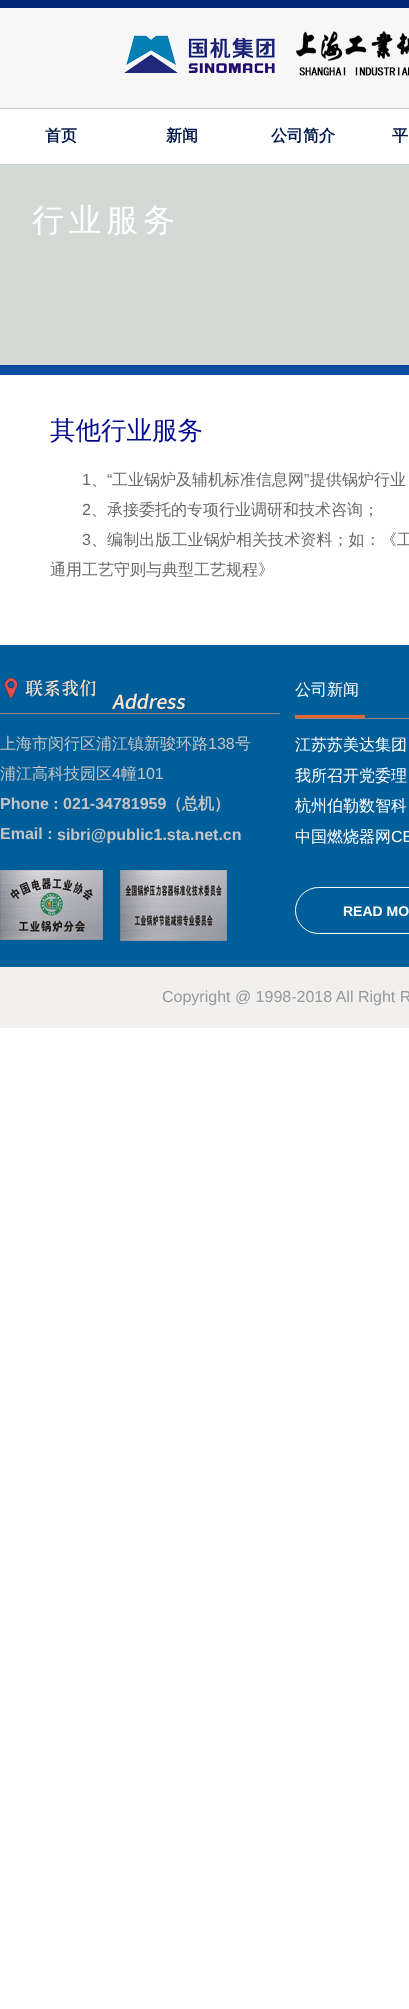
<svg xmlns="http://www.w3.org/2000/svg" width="409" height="2009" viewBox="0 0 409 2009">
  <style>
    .t1 { font: bold 16px WenQuanYi Zen Hei; fill: #00174b; }
    .t2 { font: 500 32px WenQuanYi Zen Hei; letter-spacing: 5px; fill: #fff; }
    .t3 { font: 500 25.5px WenQuanYi Zen Hei; fill: #000a89; }
    .t4 { font: 16px Liberation Sans; fill: #686868; }
    .t5 { font: 500 16px WenQuanYi Zen Hei; fill: #686868; }
    .t6 { font: 16px Liberation Sans; letter-spacing: 0.1px; fill: #686868; }
    .t7 { font: 500 16px WenQuanYi Zen Hei; letter-spacing: 0.1px; fill: #686868; }
    .t8 { font: 500 16px WenQuanYi Zen Hei; fill: #c5c5c5; }
    .t9 { font: 16px Liberation Sans; fill: #c5c5c5; }
    .t10 { font: bold 16px Liberation Sans; fill: #c5c5c5; }
    .t11 { font: bold 16px WenQuanYi Zen Hei; fill: #c5c5c5; }
    .t12 { font: 500 16px WenQuanYi Zen Hei; fill: #fff; }
    .t13 { font: 16px Liberation Sans; fill: #fff; }
    .t14 { font: bold 14px Liberation Sans; fill: #fff; }
    .t15 { font: 16px Liberation Sans; fill: #999; }
  </style>
  <rect width="100%" height="100%" fill="#fff"/>
  <rect x="0" y="0" width="409" height="8" fill="#002878"/>
  <rect x="0" y="8" width="409" height="100" fill="#f7f7f7"/>
  <image x="124" y="31" width="285" height="45" href="images/1.png"/>
  <rect x="0" y="108" width="409" height="1" fill="#ccc"/>
  <text x="45" y="141" class="t1">首页</text>
  <text x="166" y="141" class="t1">新闻</text>
  <text x="271" y="141" class="t1">公司简介</text>
  <text x="392" y="141" class="t1">平</text>
  <rect x="0" y="164" width="409" height="1" fill="#ccc"/>
  <rect x="0" y="165" width="409" height="200" fill="#d3d9d5"/>
  <text x="32" y="231" class="t2">行业服务</text>
  <rect x="0" y="365" width="409" height="10" fill="#0c4da2"/>
  <text x="50" y="439" class="t3">其他行业服务</text>
  <text x="82" y="485" class="t4">1</text>
  <text x="107" y="485" class="t4">“</text>
  <text x="112" y="485" class="t5">工业锅炉及辅机标准信息网</text>
  <text x="304" y="485" class="t4">”</text>
  <text x="310" y="485" class="t5">提供锅炉行业</text>
  <text x="91" y="485" class="t5">、</text>
  <text x="82" y="515" class="t4">2</text>
  <text x="91" y="515" class="t5">、承接委托的专项行业调研和技术咨询；</text>
  <text x="82" y="545" class="t6">3</text>
  <text x="91" y="545" class="t7">、编制出版工业锅炉相关技术资料；如：《工</text>
  <text x="50" y="575" class="t5">通用工艺守则与典型工艺规程》</text>
  <rect x="0" y="645" width="409" height="322" fill="#005e9a"/>
  <rect x="0" y="713" width="280" height="1" fill="#888"/>
  <image x="4" y="678" width="182" height="31" href="images/2.png"/>
  <text x="0" y="749" class="t8">上海市闵行区浦江镇新骏环路</text>
  <text x="208" y="749" class="t9">138</text>
  <text x="235" y="749" class="t8">号</text>
  <text x="0" y="779" class="t8">浦江高科技园区</text>
  <text x="112" y="779" class="t9">4</text>
  <text x="121" y="779" class="t8">幢</text>
  <text x="137" y="779" class="t9">101</text>
  <text x="0" y="809" class="t10">Phone : 021-34781959</text>
  <text x="166" y="809" class="t11">（总机）</text>
  <text x="0" y="839" class="t10">Email :</text>
  <text x="57" y="840" class="t10">sibri@public1.sta.net.cn</text>
  <image x="0" y="870" width="103" height="70" href="images/3.png"/>
  <image x="120" y="870" width="107" height="71" href="images/4.png"/>
  <text x="295" y="695" class="t12">公司新闻</text>
  <rect x="295" y="718" width="114" height="1" fill="#888"/>
  <rect x="295" y="715" width="70" height="3" fill="#e16831"/>
  <text x="295" y="750" class="t12">江苏苏美达集团</text>
  <text x="295" y="781" class="t12">我所召开党委理</text>
  <text x="295" y="811" class="t12">杭州伯勒数智科</text>
  <text x="295" y="842" class="t12">中国燃烧器网</text>
  <text x="391" y="842" class="t13">CE</text>
  <rect x="295.5" y="887.5" width="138" height="46" rx="23" fill="none" stroke="#fff"/>
  <text x="343" y="916" class="t14">READ MO</text>
  <rect x="0" y="967" width="409" height="61" fill="#f1f0ef"/>
  <text x="162" y="1002" class="t15">Copyright @ 1998-2018 All Right R</text>
</svg>
